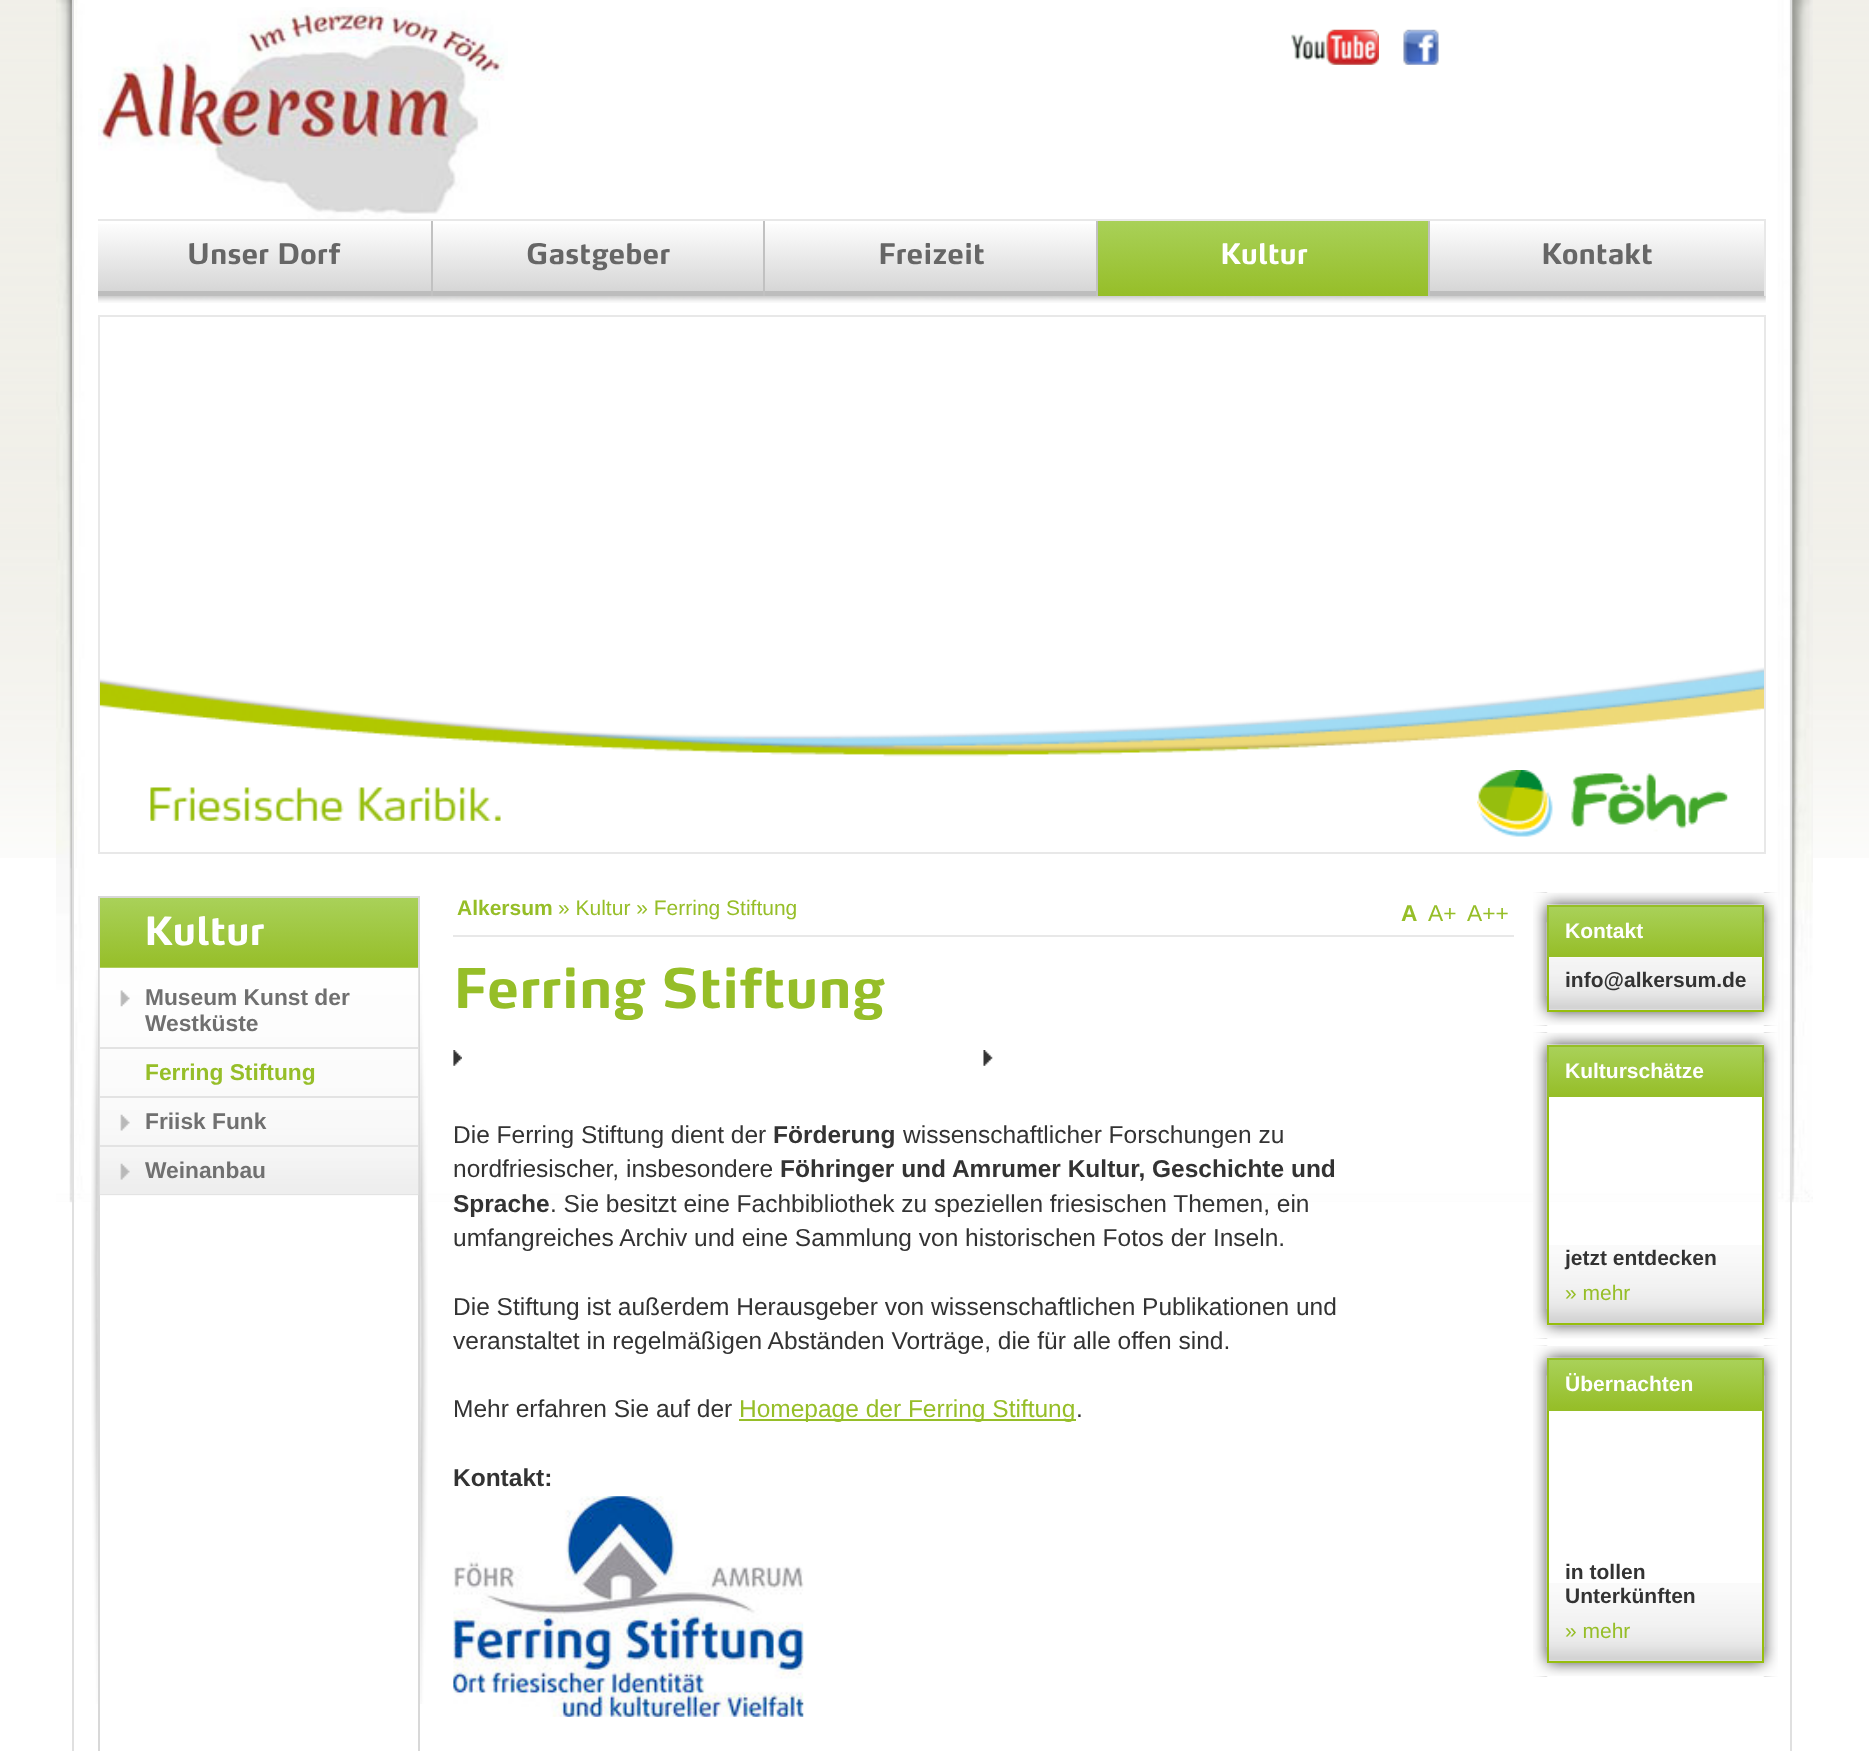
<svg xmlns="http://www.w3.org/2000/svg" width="1869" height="1751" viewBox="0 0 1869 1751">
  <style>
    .t1 { font: bold 28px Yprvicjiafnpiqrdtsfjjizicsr; fill: #666; }
    .t2 { font: bold 28px Yprvicjiafnpiqrdtsfjjizicsr; fill: #fff; }
    .t3 { font: bold 38.5px Yprvicjiafnpiqrdtsfjjizicsr; fill: #fff; }
    .t4 { font: bold 22.75px Liberation Sans; fill: #707070; }
    .t5 { font: bold 22.75px Liberation Sans; fill: #96be28; }
    .t6 { font: bold 21px Liberation Sans; fill: #96be28; }
    .t7 { font: 21px Liberation Sans; fill: #96be28; }
    .t8 { font: 22.75px Liberation Sans; fill: #96be28; }
    .t9 { font: bold 54px Yprvicjiafnpiqrdtsfjjizicsr; fill: #96be28; }
    .t10 { font: 24.5px Liberation Sans; fill: #333; }
    .t11 { font: bold 24.5px Liberation Sans; fill: #333; }
    .t12 { font: 24.5px Liberation Sans; fill: #96be28; }
    .t13 { font: bold 21px Liberation Sans; fill: #fff; }
    .t14 { font: bold 21px Liberation Sans; fill: #333; }
  </style>
  <defs>
    <linearGradient id="g1" gradientUnits="userSpaceOnUse" x1="264" y1="220" x2="264" y2="296"><stop offset="0" stop-color="#fff"/><stop offset="0.94" stop-color="#d6d6d6"/><stop offset="0.94" stop-color="#bdbdbd"/><stop offset="1" stop-color="#bdbdbd"/></linearGradient>
    <linearGradient id="g2" gradientUnits="userSpaceOnUse" x1="599" y1="220" x2="599" y2="296"><stop offset="0" stop-color="#fff"/><stop offset="0.94" stop-color="#d6d6d6"/><stop offset="0.94" stop-color="#bdbdbd"/><stop offset="1" stop-color="#bdbdbd"/></linearGradient>
    <linearGradient id="g3" gradientUnits="userSpaceOnUse" x1="931" y1="220" x2="931" y2="296"><stop offset="0" stop-color="#fff"/><stop offset="0.94" stop-color="#d6d6d6"/><stop offset="0.94" stop-color="#bdbdbd"/><stop offset="1" stop-color="#bdbdbd"/></linearGradient>
    <linearGradient id="g4" gradientUnits="userSpaceOnUse" x1="1264" y1="220" x2="1264" y2="296"><stop offset="0" stop-color="#a9d159"/><stop offset="1" stop-color="#96be28"/></linearGradient>
    <linearGradient id="g5" gradientUnits="userSpaceOnUse" x1="1597" y1="220" x2="1597" y2="296"><stop offset="0" stop-color="#fff"/><stop offset="0.94" stop-color="#d6d6d6"/><stop offset="0.94" stop-color="#bdbdbd"/><stop offset="1" stop-color="#bdbdbd"/></linearGradient>
    <linearGradient id="g6" gradientUnits="userSpaceOnUse" x1="259" y1="898" x2="259" y2="968"><stop offset="0" stop-color="#a9d159"/><stop offset="1" stop-color="#96be28"/></linearGradient>
    <linearGradient id="g7" gradientUnits="userSpaceOnUse" x1="1656" y1="907" x2="1656" y2="956"><stop offset="0" stop-color="#a9d159"/><stop offset="1" stop-color="#96be28"/></linearGradient>
    <linearGradient id="g8" gradientUnits="userSpaceOnUse" x1="1656" y1="1047" x2="1656" y2="1096"><stop offset="0" stop-color="#a9d159"/><stop offset="1" stop-color="#96be28"/></linearGradient>
    <linearGradient id="g9" gradientUnits="userSpaceOnUse" x1="1656" y1="1360" x2="1656" y2="1409"><stop offset="0" stop-color="#a9d159"/><stop offset="1" stop-color="#96be28"/></linearGradient>
  </defs>
  <rect width="100%" height="100%" fill="#fff"/>
  <image x="0" y="0" width="1869" height="858" href="images/1.png"/>
  <image x="56" y="0" width="1757" height="1203" href="images/2.png"/>
  <rect x="1790" y="0" width="2" height="1751" fill="#e0e0e0"/>
  <rect x="72" y="0" width="2" height="1751" fill="#e0e0e0"/>
  <image x="98" y="7" width="410" height="212" href="images/3.png"/>
  <image x="1291" y="29" width="88" height="36" href="images/4.png"/>
  <image x="1403" y="29" width="36" height="36" href="images/5.png"/>
  <image x="98" y="296" width="1668" height="7" href="images/6.png"/>
  <rect x="98" y="219" width="1668" height="2" fill="#e8e8e8"/>
  <rect x="1764" y="221" width="2" height="75" fill="#e8e8e8"/>
  <rect x="98" y="224" width="333" height="72" fill="url(#g1)"/>
  <text x="187" y="264" class="t1">Unser Dorf</text>
  <rect x="433" y="224" width="330" height="72" fill="url(#g2)"/>
  <rect x="431" y="221" width="2" height="75" fill="#c1c1c1"/>
  <text x="526" y="264" class="t1">Gastgeber</text>
  <rect x="765" y="224" width="331" height="72" fill="url(#g3)"/>
  <rect x="763" y="221" width="2" height="75" fill="#c1c1c1"/>
  <text x="878" y="264" class="t1">Freizeit</text>
  <rect x="1098" y="221" width="330" height="75" fill="url(#g4)"/>
  <rect x="1096" y="221" width="2" height="75" fill="#c1c1c1"/>
  <text x="1220" y="264" class="t2">Kultur</text>
  <rect x="1430" y="224" width="334" height="72" fill="url(#g5)"/>
  <rect x="1428" y="221" width="2" height="75" fill="#c1c1c1"/>
  <text x="1541" y="264" class="t1">Kontakt</text>
  <rect x="99" y="316" width="1666" height="537" fill="none" stroke="#e8e8e8" stroke-width="2"/>
  <image x="99" y="667" width="1665" height="90" href="images/7.png"/>
  <image x="150" y="787" width="351" height="34" href="images/8.png"/>
  <image x="1477" y="770" width="251" height="67" href="images/9.png"/>
  <image x="91" y="970" width="337" height="734" href="images/10.png"/>
  <rect x="99" y="897" width="320" height="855" fill="none" stroke="#d8d8d8" stroke-width="2"/>
  <rect x="100" y="898" width="318" height="70" fill="url(#g6)"/>
  <text x="144" y="945" class="t3">Kultur</text>
  <image x="99" y="967" width="320" height="229" href="images/11.png"/>
  <rect x="100" y="1047" width="318" height="2" fill="#e3e3e3"/>
  <image x="120" y="990" width="10" height="17" href="images/12.png"/>
  <text x="145" y="1005" class="t4">Museum Kunst der</text>
  <text x="145" y="1031" class="t4">Westküste</text>
  <rect x="100" y="1096" width="318" height="2" fill="#e3e3e3"/>
  <text x="145" y="1080" class="t5">Ferring Stiftung</text>
  <rect x="100" y="1145" width="318" height="2" fill="#e3e3e3"/>
  <image x="120" y="1114" width="10" height="17" href="images/13.png"/>
  <text x="145" y="1129" class="t4">Friisk Funk</text>
  <rect x="100" y="1194" width="318" height="1" fill="#e3e3e3"/>
  <image x="120" y="1163" width="10" height="17" href="images/14.png"/>
  <text x="145" y="1178" class="t4">Weinanbau</text>
  <rect x="453" y="935" width="1061" height="2" fill="#e8e8e8"/>
  <text x="457" y="915" class="t6">Alkersum</text>
  <text x="558" y="915" class="t7">» Kultur » Ferring Stiftung</text>
  <text x="1401" y="921" class="t5">A</text>
  <text x="1428" y="921" class="t8">A+</text>
  <text x="1467" y="921" class="t8">A++</text>
  <text x="453" y="1008" class="t9">Ferring Stiftung</text>
  <image x="453" y="1050" width="9" height="16" href="images/15.png"/>
  <image x="983" y="1050" width="10" height="16" href="images/16.png"/>
  <text x="453" y="1143" class="t10">Die Ferring Stiftung dient der</text>
  <text x="773" y="1143" class="t11">Förderung</text>
  <text x="903" y="1143" class="t10">wissenschaftlicher Forschungen zu</text>
  <text x="453" y="1177" class="t10">nordfriesischer, insbesondere</text>
  <text x="780" y="1177" class="t11">Föhringer und Amrumer Kultur, Geschichte und</text>
  <text x="453" y="1212" class="t11">Sprache</text>
  <text x="550" y="1212" class="t10">. Sie besitzt eine Fachbibliothek zu speziellen friesischen Themen, ein</text>
  <text x="453" y="1246" class="t10">umfangreiches Archiv und eine Sammlung von historischen Fotos der Inseln.</text>
  <text x="453" y="1315" class="t10">Die Stiftung ist außerdem Herausgeber von wissenschaftlichen Publikationen und</text>
  <text x="453" y="1349" class="t10">veranstaltet in regelmäßigen Abständen Vorträge, die für alle offen sind.</text>
  <text x="453" y="1417" class="t10">Mehr erfahren Sie auf der</text>
  <rect x="739" y="1419" width="337" height="2" fill="#96be28"/>
  <text x="739" y="1417" class="t12">Homepage der Ferring Stiftung</text>
  <text x="1076" y="1417" class="t10">.</text>
  <text x="453" y="1486" class="t11">Kontakt:</text>
  <image x="453" y="1496" width="351" height="221" href="images/17.png"/>
  <image x="1533" y="892" width="245" height="134" href="images/18.png"/>
  <image x="1533" y="892" width="245" height="31" href="images/19.png"/>
  <rect x="1549" y="907" width="213" height="48" fill="url(#g7)"/>
  <rect x="1548" y="906" width="215" height="50" fill="none" stroke="#96be28" stroke-width="2"/>
  <text x="1565" y="938" class="t13">Kontakt</text>
  <image x="1533" y="996" width="245" height="30" href="images/20.png"/>
  <image x="1549" y="957" width="213" height="53" href="images/21.png"/>
  <rect x="1762" y="957" width="2" height="55" fill="#96be0d"/>
  <rect x="1547" y="1010" width="217" height="2" fill="#96be0d"/>
  <rect x="1547" y="957" width="2" height="55" fill="#96be0d"/>
  <text x="1565" y="987" class="t14">info@alkersum.de</text>
  <image x="1533" y="1032" width="245" height="307" href="images/22.png"/>
  <image x="1533" y="1032" width="245" height="31" href="images/19.png"/>
  <rect x="1549" y="1047" width="213" height="48" fill="url(#g8)"/>
  <rect x="1548" y="1046" width="215" height="50" fill="none" stroke="#96be28" stroke-width="2"/>
  <text x="1565" y="1078" class="t13">Kulturschätze</text>
  <image x="1533" y="1309" width="245" height="30" href="images/23.png"/>
  <image x="1549" y="1245" width="213" height="78" href="images/24.png"/>
  <rect x="1762" y="1097" width="2" height="228" fill="#96be0d"/>
  <rect x="1547" y="1323" width="217" height="2" fill="#96be0d"/>
  <rect x="1547" y="1097" width="2" height="228" fill="#96be0d"/>
  <text x="1565" y="1265" class="t14">jetzt entdecken</text>
  <text x="1565" y="1300" class="t7">» mehr</text>
  <image x="1533" y="1345" width="245" height="332" href="images/25.png"/>
  <image x="1533" y="1346" width="245" height="30" href="images/26.png"/>
  <rect x="1549" y="1360" width="213" height="49" fill="url(#g9)"/>
  <rect x="1548" y="1359" width="215" height="51" fill="none" stroke="#96be28" stroke-width="2"/>
  <text x="1565" y="1391" class="t13">Übernachten</text>
  <image x="1533" y="1647" width="245" height="30" href="images/27.png"/>
  <image x="1549" y="1583" width="213" height="78" href="images/28.png"/>
  <rect x="1762" y="1411" width="2" height="252" fill="#96be0d"/>
  <rect x="1547" y="1661" width="217" height="2" fill="#96be0d"/>
  <rect x="1547" y="1411" width="2" height="252" fill="#96be0d"/>
  <text x="1565" y="1579" class="t14">in tollen</text>
  <text x="1565" y="1603" class="t14">Unterkünften</text>
  <text x="1565" y="1638" class="t7">» mehr</text>
</svg>
